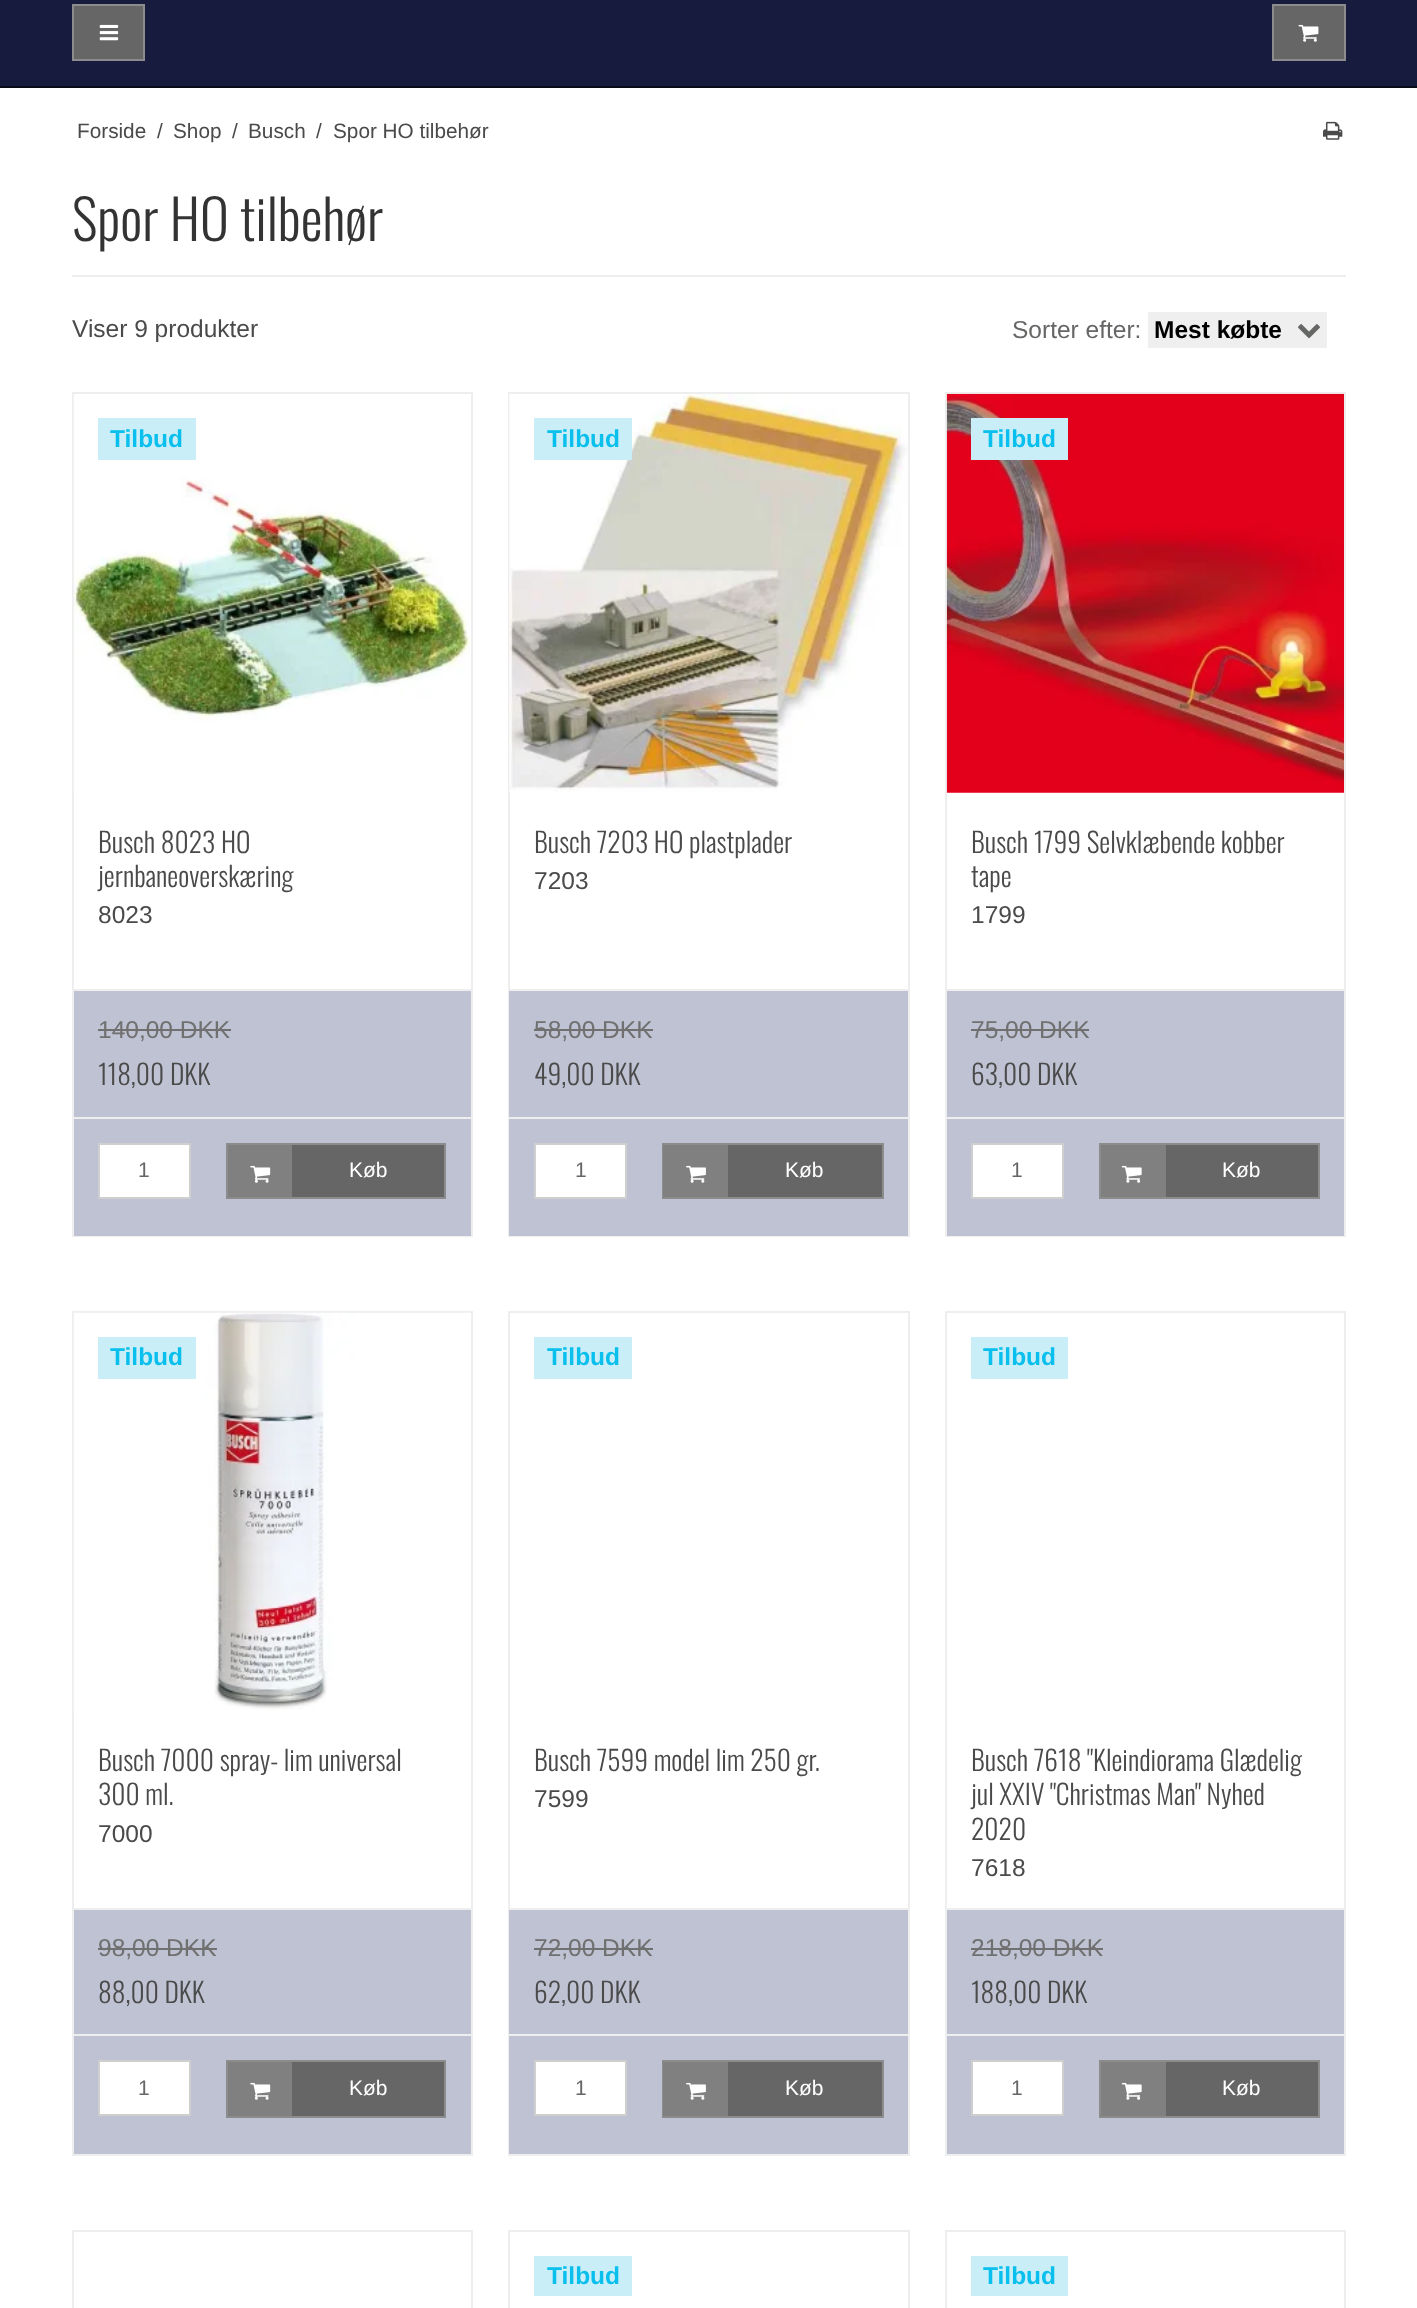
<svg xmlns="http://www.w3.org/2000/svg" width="1417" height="2308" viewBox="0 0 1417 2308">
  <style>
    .t1 { font: 20.75px Liberation Sans; fill: #4a4a4a; }
    .t2 { font: 300 55px Oswald; fill: #333; }
    .t3 { font: 24.5px Liberation Sans; fill: #4a4a4a; }
    .t4 { font: 24.5px Liberation Sans; fill: #656764; }
    .t5 { font: bold 24.5px Liberation Sans; fill: #000; }
    .t6 { font: bold 24.5px Liberation Sans; fill: #08bfed; }
    .t7 { font: 300 27.5px Oswald; fill: #4a4a4a; }
    .t8 { font: 24.5px Liberation Sans; fill: #707070; }
    .t9 { font: 21px Liberation Sans; fill: #656764; }
    .t10 { font: 21px Liberation Sans; fill: #fff; }
  </style>
  <rect width="100%" height="100%" fill="#fff"/>
  <rect x="0" y="0" width="1417" height="86" fill="#171c3e"/>
  <rect x="0" y="86" width="1417" height="2" fill="#090b19"/>
  <rect x="73" y="5" width="71" height="55" fill="#666" stroke="#8c8c8c" stroke-width="2"/>
  <image x="99" y="24" width="20" height="17" href="images/1.png"/>
  <rect x="1273" y="5" width="72" height="55" fill="#666" stroke="#8c8c8c" stroke-width="2"/>
  <image x="1298" y="24" width="21" height="18" href="images/2.png"/>
  <text x="77" y="138" class="t1">Forside</text>
  <text x="157" y="138" class="t1">/</text>
  <text x="173" y="138" class="t1">Shop</text>
  <text x="232" y="138" class="t1">/</text>
  <text x="248" y="138" class="t1">Busch</text>
  <text x="316" y="138" class="t1">/</text>
  <text x="333" y="138" class="t1">Spor HO tilbehør</text>
  <image x="1323" y="121" width="20" height="19" href="images/3.png"/>
  <rect x="72" y="275" width="1274" height="2" fill="#eee"/>
  <text x="72" y="241" class="t2">Spor HO tilbehør</text>
  <text x="72" y="337" class="t3">Viser 9 produkter</text>
  <text x="1012" y="338" class="t4">Sorter efter:</text>
  <rect x="1148" y="312" width="179" height="36" fill="#efefef"/>
  <text x="1154" y="338" class="t5">Mest købte</text>
  <image x="1298" y="324" width="22" height="15" href="images/4.png"/>
  <rect x="73" y="393" width="399" height="843" fill="none" stroke="#eee" stroke-width="2"/>
  <image x="73" y="394" width="398" height="398" href="images/5.png"/>
  <rect x="98" y="418" width="98" height="42" fill="#caeef7"/>
  <text x="110" y="447" class="t6">Tilbud</text>
  <text x="98" y="853" class="t7">Busch 8023 HO</text>
  <text x="98" y="887" class="t7">jernbaneoverskæring</text>
  <text x="98" y="923" class="t3">8023</text>
  <rect x="74" y="991" width="397" height="126" fill="#bfc2d2"/>
  <rect x="74" y="989" width="397" height="2" fill="#eee"/>
  <text x="98" y="1038" class="t8">140,00 DKK</text>
  <rect x="98" y="1029" width="133" height="2" fill="#707070"/>
  <text x="98" y="1085" class="t7">118,00 DKK</text>
  <rect x="74" y="1119" width="397" height="117" fill="#bfc2d2"/>
  <rect x="74" y="1117" width="397" height="2" fill="#eee"/>
  <rect x="99" y="1144" width="91" height="54" fill="#fff" stroke="#cfcfcf" stroke-width="2"/>
  <text x="138" y="1177" class="t9">1</text>
  <rect x="292" y="1145" width="152" height="52" fill="#666"/>
  <rect x="227" y="1144" width="218" height="54" fill="none" stroke="#8c8c8c" stroke-width="2"/>
  <rect x="228" y="1145" width="64" height="52" fill="#808080"/>
  <image x="250" y="1165" width="21" height="18" href="images/6.png"/>
  <text x="349" y="1177" class="t10">Køb</text>
  <rect x="509" y="393" width="400" height="843" fill="none" stroke="#eee" stroke-width="2"/>
  <image x="509" y="394" width="399" height="399" href="images/7.png"/>
  <rect x="534" y="418" width="98" height="42" fill="#caeef7"/>
  <text x="547" y="447" class="t6">Tilbud</text>
  <text x="534" y="853" class="t7">Busch 7203 HO plastplader</text>
  <text x="534" y="889" class="t3">7203</text>
  <rect x="509" y="991" width="399" height="126" fill="#bfc2d2"/>
  <rect x="509" y="989" width="399" height="2" fill="#eee"/>
  <text x="534" y="1038" class="t8">58,00 DKK</text>
  <rect x="534" y="1029" width="119" height="2" fill="#707070"/>
  <text x="534" y="1085" class="t7">49,00 DKK</text>
  <rect x="509" y="1119" width="399" height="117" fill="#bfc2d2"/>
  <rect x="509" y="1117" width="399" height="2" fill="#eee"/>
  <rect x="535" y="1144" width="91" height="54" fill="#fff" stroke="#cfcfcf" stroke-width="2"/>
  <text x="575" y="1177" class="t9">1</text>
  <rect x="728" y="1145" width="154" height="52" fill="#666"/>
  <rect x="663" y="1144" width="220" height="54" fill="none" stroke="#8c8c8c" stroke-width="2"/>
  <rect x="663" y="1145" width="65" height="52" fill="#808080"/>
  <image x="686" y="1165" width="20" height="18" href="images/8.png"/>
  <text x="785" y="1177" class="t10">Køb</text>
  <rect x="946" y="393" width="399" height="843" fill="none" stroke="#eee" stroke-width="2"/>
  <image x="946" y="393" width="398" height="400" href="images/9.png"/>
  <rect x="971" y="418" width="97" height="42" fill="#caeef7"/>
  <text x="983" y="447" class="t6">Tilbud</text>
  <text x="971" y="853" class="t7">Busch 1799 Selvklæbende kobber</text>
  <text x="971" y="887" class="t7">tape</text>
  <text x="971" y="923" class="t3">1799</text>
  <rect x="947" y="991" width="397" height="126" fill="#bfc2d2"/>
  <rect x="947" y="989" width="397" height="2" fill="#eee"/>
  <text x="971" y="1038" class="t8">75,00 DKK</text>
  <rect x="971" y="1029" width="118" height="2" fill="#707070"/>
  <text x="971" y="1085" class="t7">63,00 DKK</text>
  <rect x="947" y="1119" width="397" height="117" fill="#bfc2d2"/>
  <rect x="947" y="1117" width="397" height="2" fill="#eee"/>
  <rect x="972" y="1144" width="91" height="54" fill="#fff" stroke="#cfcfcf" stroke-width="2"/>
  <text x="1011" y="1177" class="t9">1</text>
  <rect x="1166" y="1145" width="152" height="52" fill="#666"/>
  <rect x="1100" y="1144" width="219" height="54" fill="none" stroke="#8c8c8c" stroke-width="2"/>
  <rect x="1101" y="1145" width="65" height="52" fill="#808080"/>
  <image x="1121" y="1165" width="21" height="18" href="images/10.png"/>
  <text x="1222" y="1177" class="t10">Køb</text>
  <rect x="73" y="1312" width="399" height="843" fill="none" stroke="#eee" stroke-width="2"/>
  <image x="73" y="1312" width="397" height="398" href="images/11.png"/>
  <rect x="98" y="1337" width="98" height="42" fill="#caeef7"/>
  <text x="110" y="1365" class="t6">Tilbud</text>
  <text x="98" y="1771" class="t7">Busch 7000 spray- lim universal</text>
  <text x="98" y="1805" class="t7">300 ml.</text>
  <text x="98" y="1842" class="t3">7000</text>
  <rect x="74" y="1910" width="397" height="124" fill="#bfc2d2"/>
  <rect x="74" y="1908" width="397" height="2" fill="#eee"/>
  <text x="98" y="1956" class="t8">98,00 DKK</text>
  <rect x="98" y="1948" width="119" height="2" fill="#707070"/>
  <text x="98" y="2003" class="t7">88,00 DKK</text>
  <rect x="74" y="2036" width="397" height="118" fill="#bfc2d2"/>
  <rect x="74" y="2034" width="397" height="2" fill="#eee"/>
  <rect x="99" y="2061" width="91" height="54" fill="#fff" stroke="#cfcfcf" stroke-width="2"/>
  <text x="138" y="2095" class="t9">1</text>
  <rect x="292" y="2062" width="152" height="54" fill="#666"/>
  <rect x="227" y="2061" width="218" height="56" fill="none" stroke="#8c8c8c" stroke-width="2"/>
  <rect x="228" y="2062" width="64" height="54" fill="#808080"/>
  <image x="250" y="2082" width="21" height="18" href="images/6.png"/>
  <text x="349" y="2095" class="t10">Køb</text>
  <rect x="509" y="1312" width="400" height="843" fill="none" stroke="#eee" stroke-width="2"/>
  <rect x="534" y="1337" width="98" height="42" fill="#caeef7"/>
  <text x="547" y="1365" class="t6">Tilbud</text>
  <text x="534" y="1771" class="t7">Busch 7599 model lim 250 gr.</text>
  <text x="534" y="1807" class="t3">7599</text>
  <rect x="509" y="1910" width="399" height="124" fill="#bfc2d2"/>
  <rect x="509" y="1908" width="399" height="2" fill="#eee"/>
  <text x="534" y="1956" class="t8">72,00 DKK</text>
  <rect x="534" y="1948" width="119" height="2" fill="#707070"/>
  <text x="534" y="2003" class="t7">62,00 DKK</text>
  <rect x="509" y="2036" width="399" height="118" fill="#bfc2d2"/>
  <rect x="509" y="2034" width="399" height="2" fill="#eee"/>
  <rect x="535" y="2061" width="91" height="54" fill="#fff" stroke="#cfcfcf" stroke-width="2"/>
  <text x="575" y="2095" class="t9">1</text>
  <rect x="728" y="2062" width="154" height="54" fill="#666"/>
  <rect x="663" y="2061" width="220" height="56" fill="none" stroke="#8c8c8c" stroke-width="2"/>
  <rect x="663" y="2062" width="65" height="54" fill="#808080"/>
  <image x="686" y="2082" width="20" height="18" href="images/8.png"/>
  <text x="785" y="2095" class="t10">Køb</text>
  <rect x="946" y="1312" width="399" height="843" fill="none" stroke="#eee" stroke-width="2"/>
  <rect x="971" y="1337" width="97" height="42" fill="#caeef7"/>
  <text x="983" y="1365" class="t6">Tilbud</text>
  <text x="971" y="1771" class="t7">Busch 7618 "Kleindiorama Glædelig</text>
  <text x="971" y="1805" class="t7">jul XXIV "Christmas Man" Nyhed</text>
  <text x="971" y="1840" class="t7">2020</text>
  <text x="971" y="1876" class="t3">7618</text>
  <rect x="947" y="1910" width="397" height="124" fill="#bfc2d2"/>
  <rect x="947" y="1908" width="397" height="2" fill="#eee"/>
  <text x="971" y="1956" class="t8">218,00 DKK</text>
  <rect x="971" y="1948" width="132" height="2" fill="#707070"/>
  <text x="971" y="2003" class="t7">188,00 DKK</text>
  <rect x="947" y="2036" width="397" height="118" fill="#bfc2d2"/>
  <rect x="947" y="2034" width="397" height="2" fill="#eee"/>
  <rect x="972" y="2061" width="91" height="54" fill="#fff" stroke="#cfcfcf" stroke-width="2"/>
  <text x="1011" y="2095" class="t9">1</text>
  <rect x="1166" y="2062" width="152" height="54" fill="#666"/>
  <rect x="1100" y="2061" width="219" height="56" fill="none" stroke="#8c8c8c" stroke-width="2"/>
  <rect x="1101" y="2062" width="65" height="54" fill="#808080"/>
  <image x="1121" y="2082" width="21" height="18" href="images/10.png"/>
  <text x="1222" y="2095" class="t10">Køb</text>
  <rect x="73" y="2231" width="399" height="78" fill="none" stroke="#eee" stroke-width="2"/>
  <rect x="509" y="2231" width="400" height="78" fill="none" stroke="#eee" stroke-width="2"/>
  <rect x="534" y="2256" width="98" height="40" fill="#caeef7"/>
  <text x="547" y="2284" class="t6">Tilbud</text>
  <rect x="946" y="2231" width="399" height="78" fill="none" stroke="#eee" stroke-width="2"/>
  <rect x="971" y="2256" width="97" height="40" fill="#caeef7"/>
  <text x="983" y="2284" class="t6">Tilbud</text>
</svg>
